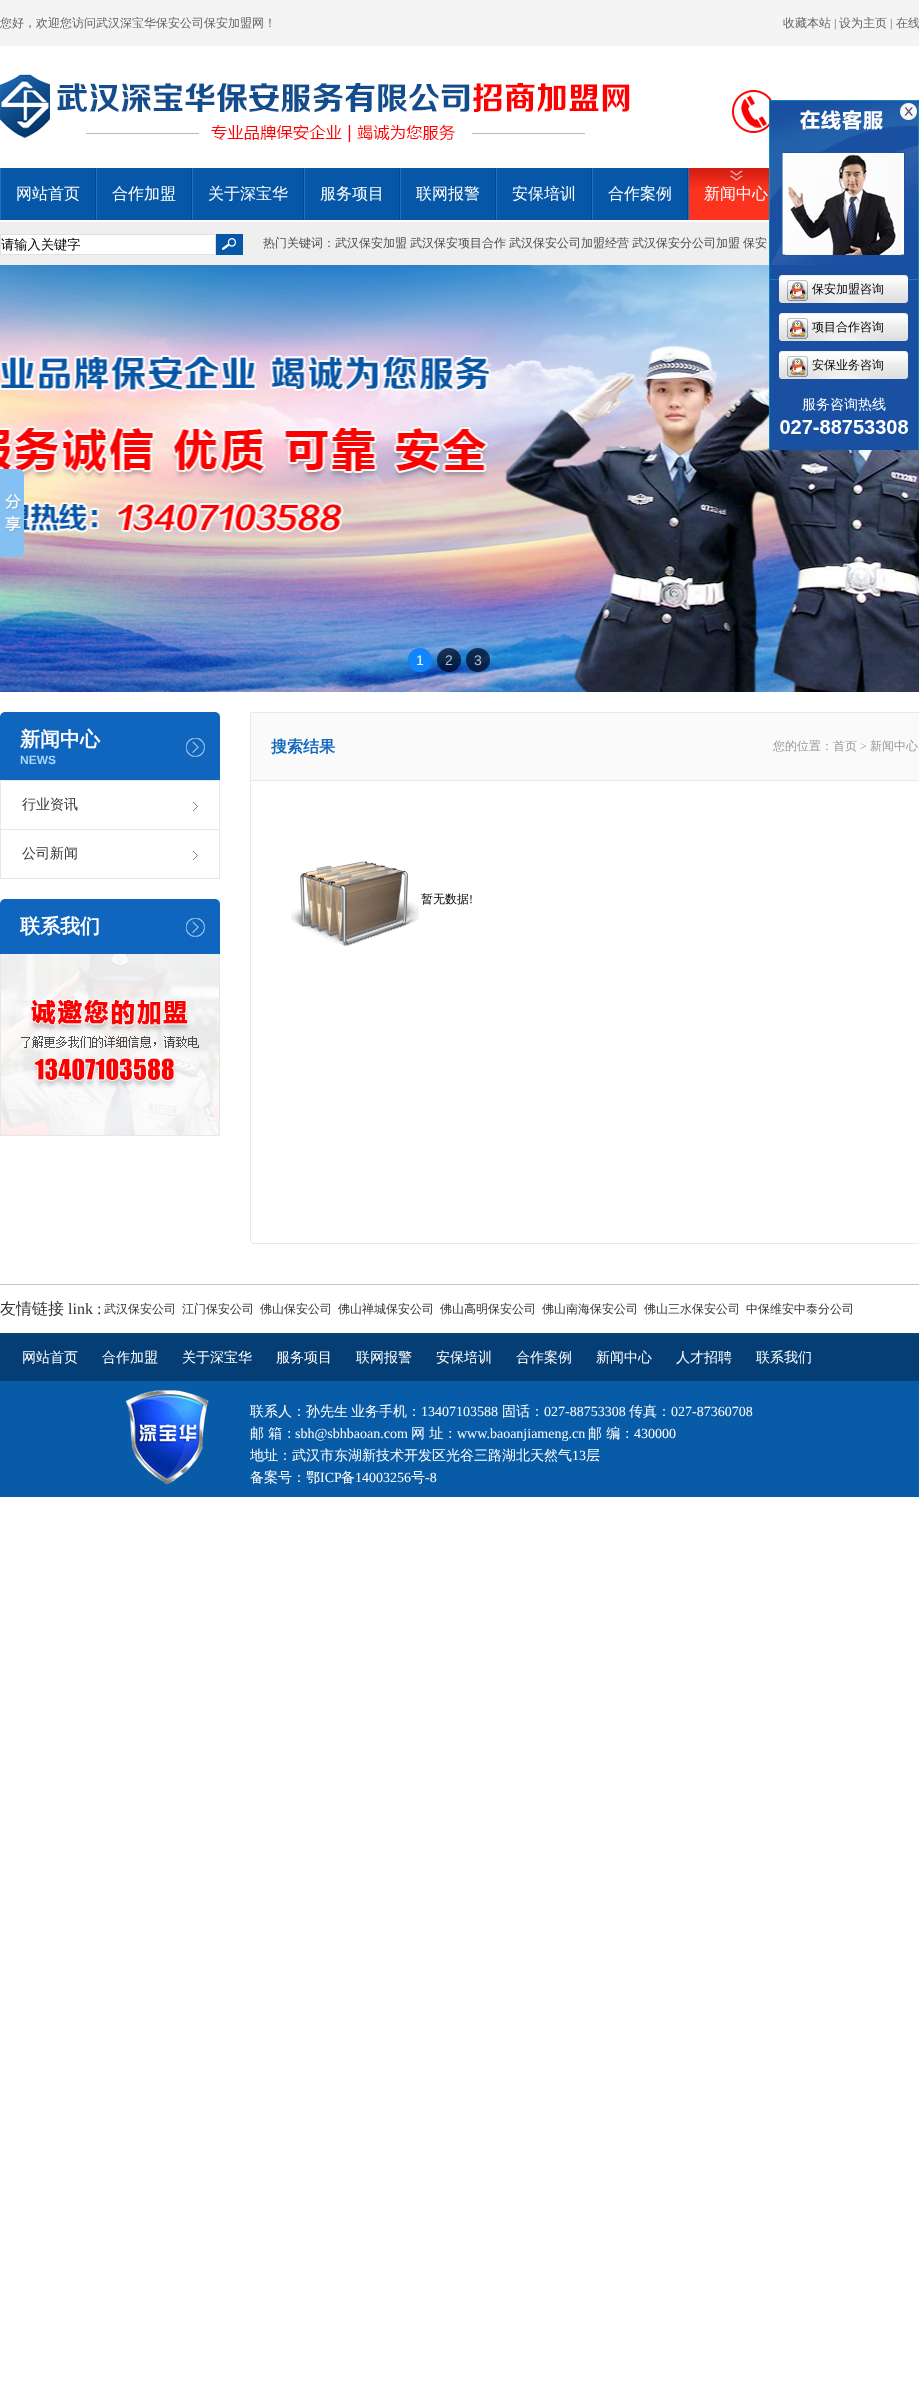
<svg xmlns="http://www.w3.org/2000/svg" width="919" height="2383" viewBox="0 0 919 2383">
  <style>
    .t1 { font: 500 12px WenQuanYi Zen Hei; fill: #636465; }
    .t2 { font: 12px Liberation Serif; fill: #636465; }
    .t3 { font: 500 16px WenQuanYi Zen Hei; fill: #fff; }
    .t4 { font: 500 13.25px WenQuanYi Zen Hei; fill: #000; }
    .t5 { font: 500 12px WenQuanYi Zen Hei; fill: #4e4e4e; }
    .t6 { font: 14px Liberation Sans; fill: #fff; }
    .t7 { font: 14px Liberation Sans; fill: #b5bec9; }
    .t8 { font: bold 20px WenQuanYi Zen Hei; fill: #fff; }
    .t9 { font: bold 12px Liberation Sans; fill: #a4d5fc; }
    .t10 { font: 500 14px WenQuanYi Zen Hei; fill: #343434; }
    .t11 { font: bold 16px WenQuanYi Zen Hei; fill: #1066be; }
    .t12 { font: 500 12px WenQuanYi Zen Hei; fill: #999; }
    .t13 { font: 12px Liberation Serif; fill: #999; }
    .t14 { font: 500 12px WenQuanYi Zen Hei; fill: #000; }
    .t15 { font: 12px Liberation Serif; fill: #000; }
    .t16 { font: 500 16px WenQuanYi Zen Hei; fill: #343434; }
    .t17 { font: 16px Liberation Serif; fill: #343434; }
    .t18 { font: 500 12px WenQuanYi Zen Hei; fill: #343434; }
    .t19 { font: 500 14px WenQuanYi Zen Hei; fill: #fff; }
    .t20 { font: 14px Liberation Serif; fill: #fff; }
  </style>
  <rect width="100%" height="100%" fill="#fff"/>
  <rect x="0" y="0" width="919" height="46" fill="#f4f4f4"/>
  <text x="0" y="27" class="t1">您好，欢迎您访问武汉深宝华保安公司保安加盟网！</text>
  <text x="783" y="27" class="t1">收藏本站</text>
  <text x="834" y="27" class="t2">|</text>
  <text x="839" y="27" class="t1">设为主页</text>
  <text x="890" y="27" class="t2">|</text>
  <text x="896" y="27" class="t1">在线</text>
  <image x="0" y="74" width="775" height="68" href="images/1.png"/>
  <image x="0" y="265" width="919" height="427" href="images/6.png"/>
  <image x="769" y="100" width="150" height="350" href="images/2.png"/>
  <rect x="1" y="168" width="686" height="52" fill="#0657a8"/>
  <rect x="95" y="168" width="1" height="52" fill="#01468a"/>
  <rect x="0" y="168" width="1" height="52" fill="#2570bc"/>
  <text x="16" y="199" class="t3">网站首页</text>
  <rect x="191" y="168" width="1" height="52" fill="#01468a"/>
  <rect x="96" y="168" width="1" height="52" fill="#2570bc"/>
  <text x="112" y="199" class="t3">合作加盟</text>
  <rect x="303" y="168" width="1" height="52" fill="#01468a"/>
  <rect x="192" y="168" width="1" height="52" fill="#2570bc"/>
  <text x="208" y="199" class="t3">关于深宝华</text>
  <rect x="399" y="168" width="1" height="52" fill="#01468a"/>
  <rect x="304" y="168" width="1" height="52" fill="#2570bc"/>
  <text x="320" y="199" class="t3">服务项目</text>
  <rect x="495" y="168" width="1" height="52" fill="#01468a"/>
  <rect x="400" y="168" width="1" height="52" fill="#2570bc"/>
  <text x="416" y="199" class="t3">联网报警</text>
  <rect x="591" y="168" width="1" height="52" fill="#01468a"/>
  <rect x="496" y="168" width="1" height="52" fill="#2570bc"/>
  <text x="512" y="199" class="t3">安保培训</text>
  <rect x="687" y="168" width="1" height="52" fill="#01468a"/>
  <rect x="592" y="168" width="1" height="52" fill="#2570bc"/>
  <text x="608" y="199" class="t3">合作案例</text>
  <rect x="688" y="168" width="1" height="52" fill="#2570bc"/>
  <image x="689" y="168" width="80" height="52" href="images/3.png"/>
  <text x="704" y="199" class="t3">新闻中心</text>
  <rect x="0" y="222" width="769" height="43" fill="#efefef"/>
  <rect x="0.5" y="234.5" width="215" height="20" fill="#fff" stroke="#e0e0e0"/>
  <text x="1" y="249" class="t4">请输入关键字</text>
  <image x="216" y="234" width="27" height="21" href="images/4.png"/>
  <text x="263" y="247" class="t5">热门关键词：武汉保安加盟</text>
  <text x="410" y="247" class="t5">武汉保安项目合作</text>
  <text x="509" y="247" class="t5">武汉保安公司加盟经营</text>
  <text x="632" y="247" class="t5">武汉保安分公司加盟</text>
  <text x="743" y="247" class="t5">保安</text>
  <image x="0" y="469" width="24" height="88" href="images/5.png"/>
  <image x="408" y="648" width="24" height="24" href="images/7.png"/>
  <text x="416" y="665" class="t6">1</text>
  <image x="437" y="648" width="24" height="24" href="images/8.png"/>
  <text x="445" y="665" class="t7">2</text>
  <image x="466" y="648" width="24" height="24" href="images/9.png"/>
  <text x="474" y="665" class="t7">3</text>
  <image x="0" y="712" width="220" height="69" href="images/10.png"/>
  <text x="20" y="746" class="t8">新闻中心</text>
  <text x="20" y="764" class="t9">NEWS</text>
  <rect x="219" y="781" width="1" height="98" fill="#e8e8e8"/>
  <rect x="0" y="829" width="220" height="1" fill="#e8e8e8"/>
  <rect x="0" y="781" width="1" height="49" fill="#e8e8e8"/>
  <image x="193" y="801" width="5" height="11" href="images/11.png"/>
  <text x="22" y="809" class="t10">行业资讯</text>
  <rect x="0" y="878" width="220" height="1" fill="#e8e8e8"/>
  <rect x="0" y="830" width="1" height="49" fill="#e8e8e8"/>
  <image x="193" y="850" width="5" height="11" href="images/11.png"/>
  <text x="22" y="858" class="t10">公司新闻</text>
  <image x="0" y="899" width="220" height="55" href="images/12.png"/>
  <text x="20" y="933" class="t8">联系我们</text>
  <rect x="219" y="954" width="1" height="182" fill="#e8e8e8"/>
  <rect x="0" y="1135" width="220" height="1" fill="#e8e8e8"/>
  <rect x="0" y="954" width="1" height="182" fill="#e8e8e8"/>
  <image x="1" y="954" width="218" height="181" href="images/13.png"/>
  <path d="M250.5 712.5H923.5V1240C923.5 1242 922 1243.5 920 1243.5H254C252 1243.5 250.5 1242 250.5 1240Z" fill="none" stroke="#e8e8e8"/>
  <rect x="251" y="713" width="668" height="67" fill="#fafafa"/>
  <rect x="251" y="780" width="668" height="1" fill="#e8e8e8"/>
  <text x="271" y="752" class="t11">搜索结果</text>
  <text x="773" y="750" class="t12">您的位置：首页</text>
  <text x="860" y="750" class="t13">&gt;</text>
  <text x="870" y="750" class="t12">新闻中心</text>
  <image x="291" y="861" width="128" height="86" href="images/14.png"/>
  <text x="421" y="903" class="t14">暂无数据</text>
  <text x="469" y="903" class="t15">!</text>
  <rect x="0" y="1284" width="919" height="1" fill="#c5c5c5"/>
  <text x="0" y="1314" class="t16">友情链接</text>
  <text x="68" y="1314" class="t17">link :</text>
  <text x="104" y="1313" class="t18">武汉保安公司</text>
  <text x="182" y="1313" class="t18">江门保安公司</text>
  <text x="260" y="1313" class="t18">佛山保安公司</text>
  <text x="338" y="1313" class="t18">佛山禅城保安公司</text>
  <text x="440" y="1313" class="t18">佛山高明保安公司</text>
  <text x="542" y="1313" class="t18">佛山南海保安公司</text>
  <text x="644" y="1313" class="t18">佛山三水保安公司</text>
  <text x="746" y="1313" class="t18">中保维安中泰分公司</text>
  <image x="0" y="1333" width="919" height="164" href="images/15.png"/>
  <text x="22" y="1362" class="t19">网站首页</text>
  <text x="102" y="1362" class="t19">合作加盟</text>
  <text x="182" y="1362" class="t19">关于深宝华</text>
  <text x="276" y="1362" class="t19">服务项目</text>
  <text x="356" y="1362" class="t19">联网报警</text>
  <text x="436" y="1362" class="t19">安保培训</text>
  <text x="516" y="1362" class="t19">合作案例</text>
  <text x="596" y="1362" class="t19">新闻中心</text>
  <text x="676" y="1362" class="t19">人才招聘</text>
  <text x="756" y="1362" class="t19">联系我们</text>
  <image x="125" y="1390" width="84" height="95" href="images/16.png"/>
  <text x="250" y="1416" class="t19">联系人：孙先生</text>
  <text x="351" y="1416" class="t19">业务手机：</text>
  <text x="421" y="1416" class="t20">13407103588</text>
  <text x="502" y="1416" class="t19">固话：</text>
  <text x="544" y="1416" class="t20">027-88753308</text>
  <text x="629" y="1416" class="t19">传真：</text>
  <text x="671" y="1416" class="t20">027-87360708</text>
  <text x="250" y="1438" class="t19">邮 箱：</text>
  <text x="295" y="1438" class="t20">sbh@sbhbaoan.com</text>
  <text x="411" y="1438" class="t19">网 址：</text>
  <text x="457" y="1438" class="t20">www.baoanjiameng.cn</text>
  <text x="588" y="1438" class="t19">邮 编：</text>
  <text x="634" y="1438" class="t20">430000</text>
  <text x="250" y="1460" class="t19">地址：武汉市东湖新技术开发区光谷三路湖北天然气</text>
  <text x="572" y="1460" class="t20">13</text>
  <text x="586" y="1460" class="t19">层</text>
  <text x="250" y="1482" class="t19">备案号：鄂</text>
  <text x="320" y="1482" class="t20">ICP</text>
  <text x="341" y="1482" class="t19">备</text>
  <text x="355" y="1482" class="t20">14003256</text>
  <text x="411" y="1482" class="t19">号</text>
  <text x="425" y="1482" class="t20">-8</text>
</svg>
